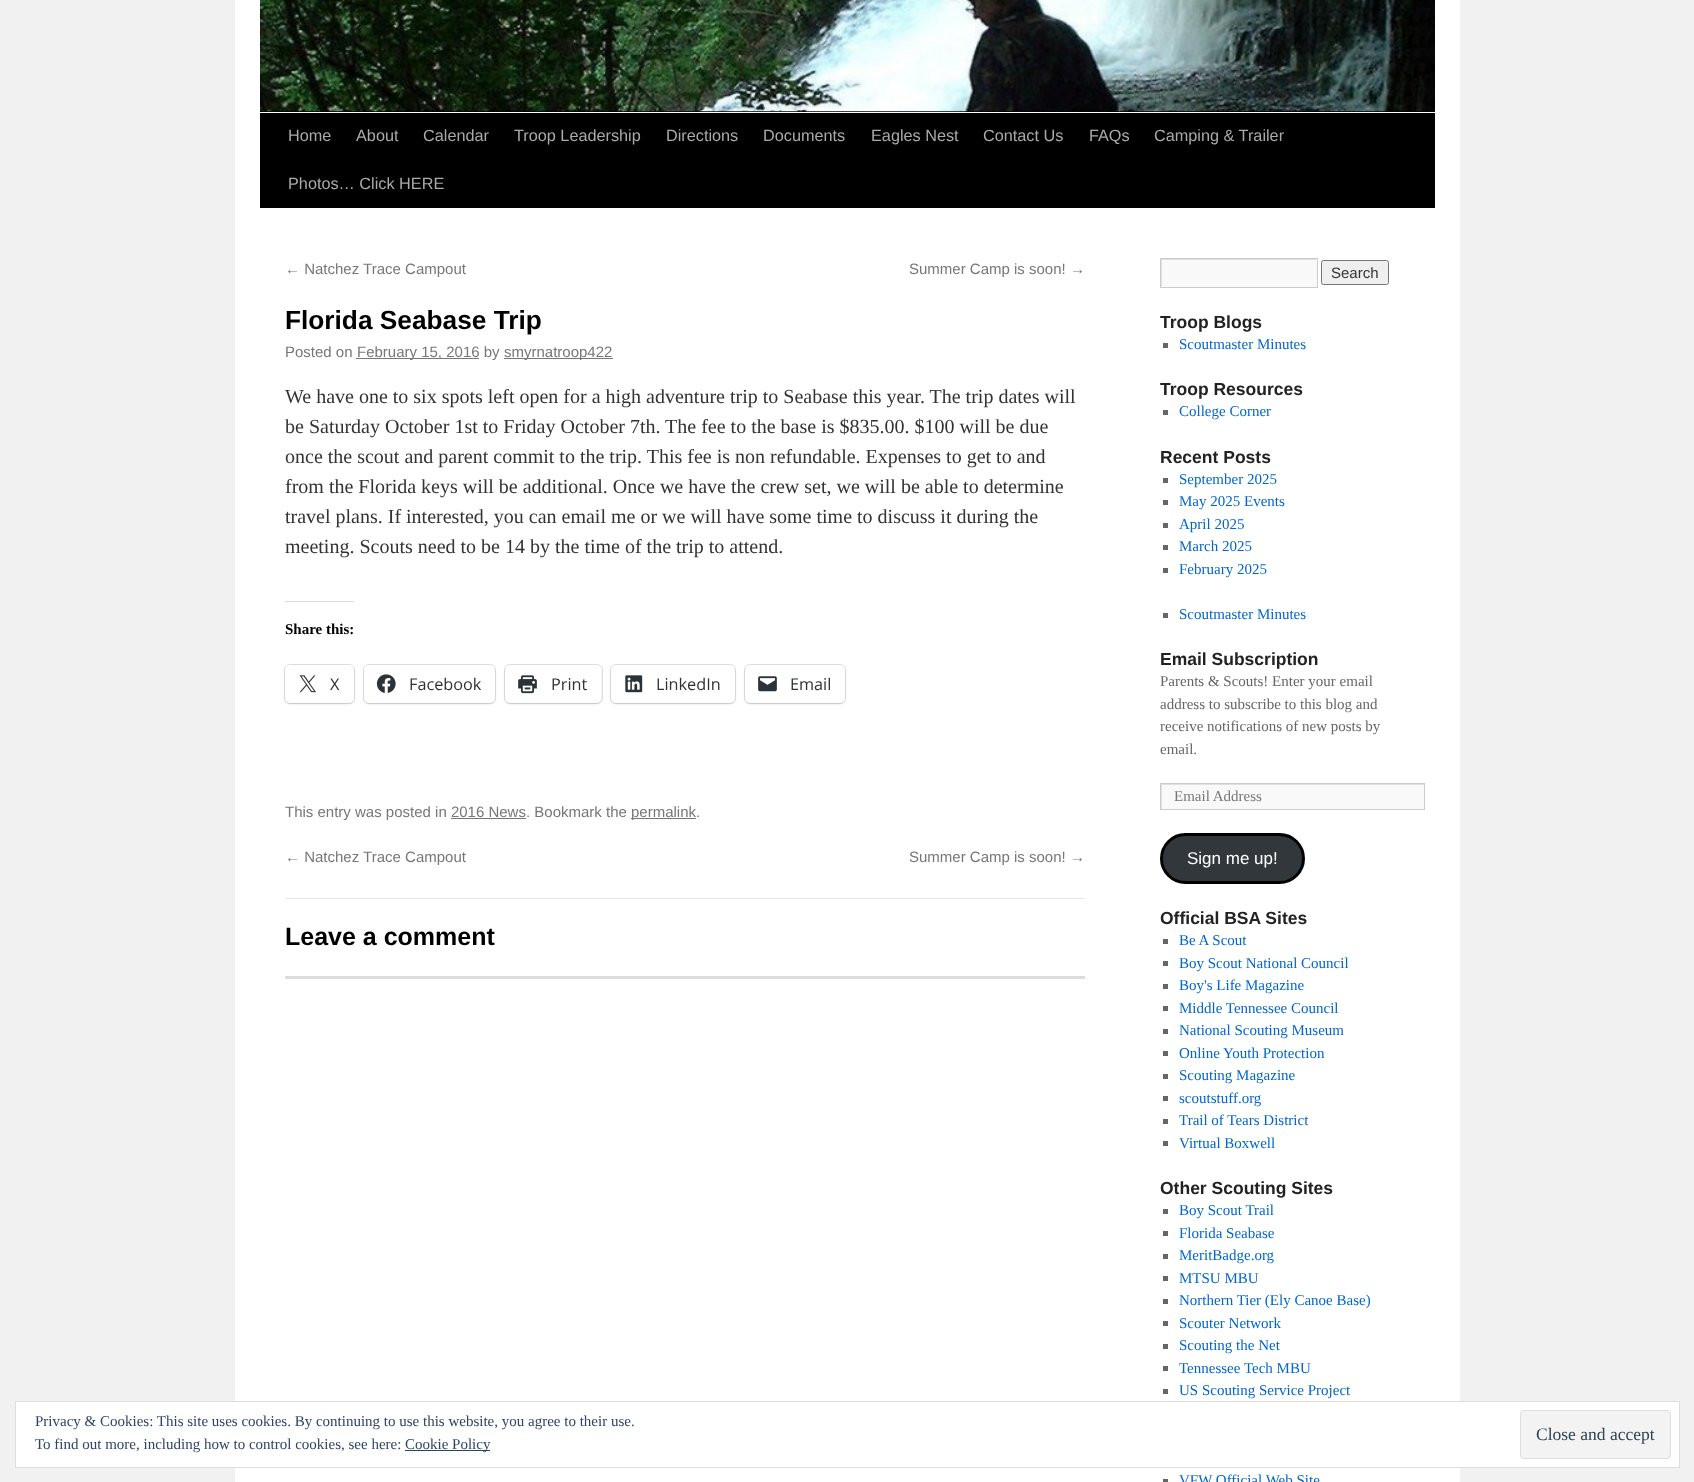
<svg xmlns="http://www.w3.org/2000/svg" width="1694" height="1482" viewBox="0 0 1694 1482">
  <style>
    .t1 { font: 16.25px Liberation Sans; fill: #aaa; }
    .t2 { font: 15px Liberation Sans; fill: #777; }
    .t3 { font: bold 26.25px Liberation Sans; fill: #000; }
    .t4 { font: 20px Liberation Serif; fill: #333; }
    .t5 { font: bold 15px Liberation Serif; fill: #000; }
    .t6 { font: 16.25px Open Sans; fill: #2c3338; }
    .t7 { font: bold 25px Liberation Sans; fill: #000; }
    .t8 { font: 15px Liberation Sans; fill: #333; }
    .t9 { font: bold 17.5px Liberation Sans; fill: #222; }
    .t10 { font: 15px Liberation Serif; fill: #06c; }
    .t11 { font: 15px Liberation Serif; fill: #666; }
    .t12 { font: 15px Liberation Serif; fill: #777; }
    .t13 { font: 17px Liberation Sans; fill: #fff; }
    .t14 { font: 15px Liberation Serif; fill: #2e4467; }
    .t15 { font: 17.5px Liberation Serif; fill: #2e4453; }
  </style>
  <defs>
    <clipPath id="clip1"><rect x="1161" y="259" width="155" height="27"/></clipPath>
    <clipPath id="clip2"><rect x="1161" y="784" width="263" height="25"/></clipPath>
  </defs>
  <rect width="100%" height="100%" fill="#f1f1f1"/>
  <rect x="235" y="0" width="1225" height="1482" fill="#fff"/>
  <rect x="260" y="111" width="1175" height="1" fill="#000"/>
  <image x="260" y="0" width="1175" height="112" href="images/1.png"/>
  <rect x="260" y="113" width="1175" height="95" fill="#000"/>
  <text x="288" y="141" class="t1">Home</text>
  <text x="356" y="141" class="t1">About</text>
  <text x="423" y="141" class="t1">Calendar</text>
  <text x="514" y="141" class="t1">Troop Leadership</text>
  <text x="666" y="141" class="t1">Directions</text>
  <text x="763" y="141" class="t1">Documents</text>
  <text x="871" y="141" class="t1">Eagles Nest</text>
  <text x="983" y="141" class="t1">Contact Us</text>
  <text x="1089" y="141" class="t1">FAQs</text>
  <text x="1154" y="141" class="t1">Camping &amp; Trailer</text>
  <text x="288" y="189" class="t1">Photos… Click HERE</text>
  <text x="285" y="274" class="t2">← Natchez Trace Campout</text>
  <text x="909" y="274" class="t2">Summer Camp is soon! →</text>
  <text x="285" y="329" class="t3">Florida Seabase Trip</text>
  <text x="285" y="357" class="t2">Posted on</text>
  <rect x="356" y="358" width="123" height="1" fill="#777"/>
  <text x="357" y="357" class="t2">February 15, 2016 by</text>
  <rect x="504" y="358" width="109" height="1" fill="#777"/>
  <text x="504" y="357" class="t2">smyrnatroop422</text>
  <text x="285" y="403" class="t4">We have one to six spots left open for a high adventure trip to Seabase this year. The trip dates will</text>
  <text x="285" y="433" class="t4">be Saturday October 1st to Friday October 7th. The fee to the base is $835.00. $100 will be due</text>
  <text x="285" y="463" class="t4">once the scout and parent commit to the trip. This fee is non refundable. Expenses to get to and</text>
  <text x="285" y="493" class="t4">from the Florida keys will be additional. Once we have the crew set, we will be able to determine</text>
  <text x="285" y="523" class="t4">travel plans. If interested, you can email me or we will have some time to discuss it during the</text>
  <text x="285" y="553" class="t4">meeting. Scouts need to be 14 by the time of the trip to attend.</text>
  <rect x="285" y="601" width="69" height="1" fill="#dcdcde"/>
  <text x="285" y="634" class="t5">Share this:</text>
  <rect x="284.5" y="664.5" width="70" height="39" rx="5.5" fill="none" stroke="#e0e0e0"/>
  <rect x="285" y="666" width="69" height="38" rx="5" fill="#0000001f" filter="blur(1px)"/>
  <rect x="285" y="665" width="69" height="38" rx="5" fill="#fff"/>
  <image x="299" y="675" width="17" height="18" href="images/2.png"/>
  <text x="330" y="690" class="t6">X</text>
  <rect x="363.5" y="664.5" width="132" height="39" rx="5.5" fill="none" stroke="#e0e0e0"/>
  <rect x="364" y="666" width="131" height="38" rx="5" fill="#0000001f" filter="blur(1px)"/>
  <rect x="364" y="665" width="131" height="38" rx="5" fill="#fff"/>
  <image x="376" y="674" width="20" height="19" href="images/3.png"/>
  <text x="409" y="690" class="t6">Facebook</text>
  <rect x="504.5" y="664.5" width="98" height="39" rx="5.5" fill="none" stroke="#e0e0e0"/>
  <rect x="505" y="666" width="96" height="38" rx="5" fill="#0000001f" filter="blur(1px)"/>
  <rect x="505" y="665" width="96" height="38" rx="5" fill="#fff"/>
  <image x="518" y="675" width="19" height="19" href="images/4.png"/>
  <text x="551" y="690" class="t6">Print</text>
  <rect x="610.5" y="664.5" width="125" height="39" rx="5.5" fill="none" stroke="#e0e0e0"/>
  <rect x="611" y="666" width="124" height="38" rx="5" fill="#0000001f" filter="blur(1px)"/>
  <rect x="611" y="665" width="124" height="38" rx="5" fill="#fff"/>
  <image x="625" y="675" width="18" height="18" href="images/5.png"/>
  <text x="656" y="690" class="t6">LinkedIn</text>
  <rect x="744.5" y="664.5" width="101" height="39" rx="5.5" fill="none" stroke="#e0e0e0"/>
  <rect x="745" y="666" width="100" height="38" rx="5" fill="#0000001f" filter="blur(1px)"/>
  <rect x="745" y="665" width="100" height="38" rx="5" fill="#fff"/>
  <image x="758" y="676" width="19" height="16" href="images/6.png"/>
  <text x="790" y="690" class="t6">Email</text>
  <text x="285" y="817" class="t2">This entry was posted in 2016 News. Bookmark the</text>
  <rect x="631" y="818" width="65" height="1" fill="#777"/>
  <text x="631" y="817" class="t2">permalink.</text>
  <rect x="451" y="818" width="75" height="1" fill="#777"/>
  <text x="285" y="862" class="t2">← Natchez Trace Campout</text>
  <text x="909" y="862" class="t2">Summer Camp is soon! →</text>
  <rect x="285" y="898" width="800" height="1" fill="#e7e7e7"/>
  <text x="285" y="945" class="t7">Leave a comment</text>
  <rect x="285" y="976" width="800" height="3" fill="#dcdcde"/>
  <rect x="1161" y="259" width="156" height="28" fill="#f9f9f9"/>
  <g clip-path="url(#clip1)">
    <path d="M1038 135H1440V410H1038ZM1162 260H1318V288H1162Z" fill="#e0e0e0" fill-rule="evenodd"/>
  </g>
  <rect x="1160.5" y="258.5" width="157" height="29" fill="none" stroke="#ccc"/>
  <rect x="1321.5" y="260.5" width="67" height="24" rx="2" fill="#efefef" stroke="#767676"/>
  <text x="1331" y="278" class="t8">Search</text>
  <text x="1160" y="328" class="t9">Troop Blogs</text>
  <rect x="1163" y="343" width="5" height="5" fill="#666"/>
  <text x="1179" y="349" class="t10">Scoutmaster Minutes</text>
  <text x="1160" y="395" class="t9">Troop Resources</text>
  <rect x="1163" y="410" width="5" height="5" fill="#666"/>
  <text x="1179" y="416" class="t10">College Corner</text>
  <text x="1160" y="463" class="t9">Recent Posts</text>
  <rect x="1163" y="478" width="5" height="5" fill="#666"/>
  <text x="1179" y="484" class="t10">September 2025</text>
  <rect x="1163" y="500" width="5" height="5" fill="#666"/>
  <text x="1179" y="506" class="t10">May 2025 Events</text>
  <rect x="1163" y="523" width="5" height="5" fill="#666"/>
  <text x="1179" y="529" class="t10">April 2025</text>
  <rect x="1163" y="545" width="5" height="5" fill="#666"/>
  <text x="1179" y="551" class="t10">March 2025</text>
  <rect x="1163" y="568" width="5" height="5" fill="#666"/>
  <text x="1179" y="574" class="t10">February 2025</text>
  <rect x="1163" y="613" width="5" height="5" fill="#666"/>
  <text x="1179" y="619" class="t10">Scoutmaster Minutes</text>
  <text x="1160" y="665" class="t9">Email Subscription</text>
  <text x="1160" y="686" class="t11">Parents &amp; Scouts! Enter your email</text>
  <text x="1160" y="709" class="t11">address to subscribe to this blog and</text>
  <text x="1160" y="731" class="t11">receive notifications of new posts by</text>
  <text x="1160" y="754" class="t11">email.</text>
  <rect x="1162" y="785" width="262" height="24" fill="#f9f9f9"/>
  <g clip-path="url(#clip2)">
    <path d="M1038 660H1548V932H1038ZM1162 785H1425V810H1162Z" fill="#e0e0e0" fill-rule="evenodd"/>
  </g>
  <rect x="1160.5" y="783.5" width="264" height="26" fill="none" stroke="#ccc"/>
  <text x="1174" y="801" class="t12">Email Address</text>
  <rect x="1161.5" y="834.5" width="142" height="48" rx="24" fill="#32373c" stroke="#000" stroke-width="3"/>
  <text x="1187" y="864" class="t13">Sign me up!</text>
  <text x="1160" y="924" class="t9">Official BSA Sites</text>
  <rect x="1163" y="939" width="5" height="5" fill="#666"/>
  <text x="1179" y="945" class="t10">Be A Scout</text>
  <rect x="1163" y="961" width="5" height="5" fill="#666"/>
  <text x="1179" y="968" class="t10">Boy Scout National Council</text>
  <rect x="1163" y="984" width="5" height="5" fill="#666"/>
  <text x="1179" y="990" class="t10">Boy's Life Magazine</text>
  <rect x="1163" y="1006" width="5" height="5" fill="#666"/>
  <text x="1179" y="1013" class="t10">Middle Tennessee Council</text>
  <rect x="1163" y="1029" width="5" height="5" fill="#666"/>
  <text x="1179" y="1035" class="t10">National Scouting Museum</text>
  <rect x="1163" y="1051" width="5" height="5" fill="#666"/>
  <text x="1179" y="1058" class="t10">Online Youth Protection</text>
  <rect x="1163" y="1074" width="5" height="5" fill="#666"/>
  <text x="1179" y="1080" class="t10">Scouting Magazine</text>
  <rect x="1163" y="1096" width="5" height="5" fill="#666"/>
  <text x="1179" y="1103" class="t10">scoutstuff.org</text>
  <rect x="1163" y="1119" width="5" height="5" fill="#666"/>
  <text x="1179" y="1125" class="t10">Trail of Tears District</text>
  <rect x="1163" y="1141" width="5" height="5" fill="#666"/>
  <text x="1179" y="1148" class="t10">Virtual Boxwell</text>
  <text x="1160" y="1194" class="t9">Other Scouting Sites</text>
  <rect x="1163" y="1209" width="5" height="5" fill="#666"/>
  <text x="1179" y="1215" class="t10">Boy Scout Trail</text>
  <rect x="1163" y="1231" width="5" height="5" fill="#666"/>
  <text x="1179" y="1238" class="t10">Florida Seabase</text>
  <rect x="1163" y="1254" width="5" height="5" fill="#666"/>
  <text x="1179" y="1260" class="t10">MeritBadge.org</text>
  <rect x="1163" y="1276" width="5" height="5" fill="#666"/>
  <text x="1179" y="1283" class="t10">MTSU MBU</text>
  <rect x="1163" y="1299" width="5" height="5" fill="#666"/>
  <text x="1179" y="1305" class="t10">Northern Tier (Ely Canoe Base)</text>
  <rect x="1163" y="1321" width="5" height="5" fill="#666"/>
  <text x="1179" y="1328" class="t10">Scouter Network</text>
  <rect x="1163" y="1344" width="5" height="5" fill="#666"/>
  <text x="1179" y="1350" class="t10">Scouting the Net</text>
  <rect x="1163" y="1366" width="5" height="5" fill="#666"/>
  <text x="1179" y="1373" class="t10">Tennessee Tech MBU</text>
  <rect x="1163" y="1389" width="5" height="5" fill="#666"/>
  <text x="1179" y="1395" class="t10">US Scouting Service Project</text>
  <rect x="1163" y="1479" width="5" height="3" fill="#666"/>
  <text x="1179" y="1485" class="t10">VFW Official Web Site</text>
  <rect x="15.5" y="1401.5" width="1664" height="66" fill="#fff" stroke="#dedede"/>
  <text x="35" y="1426" class="t14">Privacy &amp; Cookies: This site uses cookies. By continuing to use this website, you agree to their use.</text>
  <rect x="1520.5" y="1410.5" width="150" height="48" rx="3.5" fill="#f3f3f3" stroke="#dedede"/>
  <text x="1536" y="1440" class="t15">Close and accept</text>
  <text x="35" y="1449" class="t14">To find out more, including how to control cookies, see here:</text>
  <rect x="405" y="1450" width="85" height="1" fill="#2e4467"/>
  <text x="405" y="1449" class="t14">Cookie Policy</text>
</svg>
